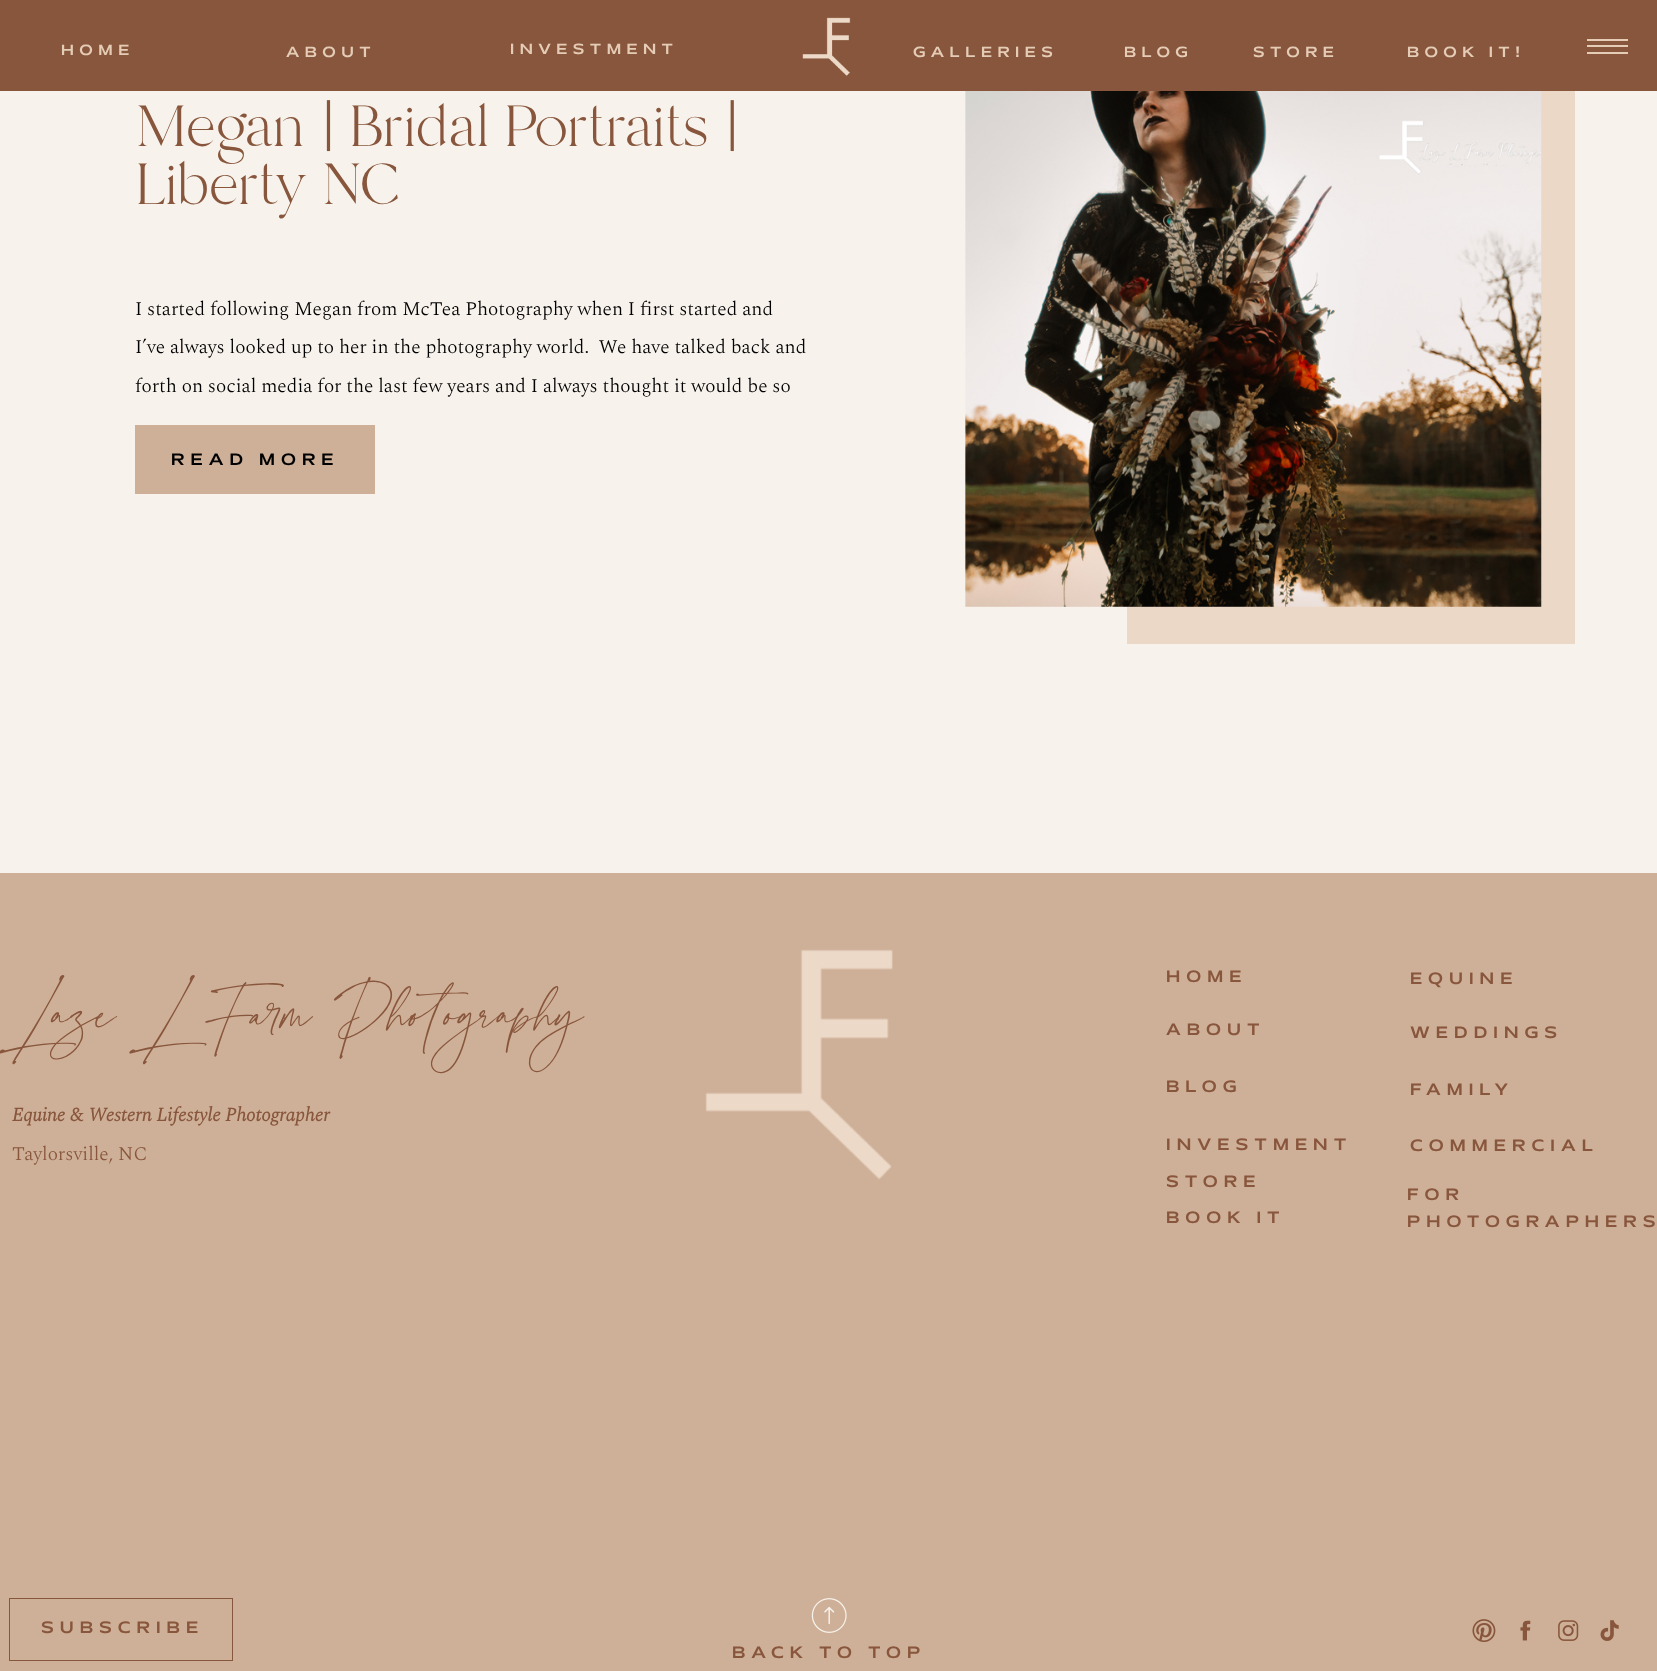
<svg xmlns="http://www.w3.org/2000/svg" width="1657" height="1671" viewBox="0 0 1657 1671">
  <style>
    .t1 { font: 600 13.75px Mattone; letter-spacing: 5.5px; fill: #e5ccb6; }
    .t2 { font: 82.75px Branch; fill: #88563c; }
    .t3 { font: 300 19.35px Spectral; fill: #000; }
    .t4 { font: 600 15.2px Mattone; letter-spacing: 6.1px; fill: #000; }
    .t5 { font: 82.75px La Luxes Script; fill: #88563c; }
    .t6 { font: 600 15.2px Mattone; letter-spacing: 6.1px; fill: #88563c; }
    .t7 { font: italic bold 19.35px Spectral; fill: #88563c; }
    .t8 { font: 300 19.35px Spectral; fill: #88563c; }
  </style>
  <rect width="100%" height="100%" fill="#f7f2eb"/>
  <rect x="0" y="0" width="1657" height="91" fill="#88563c"/>
  <text x="61" y="55" class="t1">HOME</text>
  <text x="286" y="57" class="t1">ABOUT</text>
  <text x="510" y="54" class="t1">INVESTMENT</text>
  <image x="802" y="17" width="49" height="59" href="images/1.png"/>
  <text x="913" y="57" class="t1">GALLERIES</text>
  <text x="1124" y="57" class="t1">BLOG</text>
  <text x="1253" y="57" class="t1">STORE</text>
  <text x="1407" y="57" class="t1">BOOK IT!</text>
  <path d="M1587 52H1628V54H1587ZM1587 45H1628V47H1587ZM1587 39H1628V41H1587Z" fill="#e5ccb6"/>
  <rect x="1127" y="91" width="448" height="553" fill="#ebd8c7"/>
  <image x="965" y="91" width="577" height="516" href="images/2.png"/>
  <text x="135" y="146" class="t2">Megan | Bridal Portraits |</text>
  <text x="135" y="204" class="t2">Liberty NC</text>
  <text x="135" y="315" class="t3">I started following Megan from McTea Photography when I first started and</text>
  <text x="135" y="353" class="t3" xml:space="preserve">I’ve always looked up to her in the photography world.  We have talked back and</text>
  <text x="135" y="392" class="t3">forth on social media for the last few years and I always thought it would be so</text>
  <rect x="135" y="425" width="240" height="69" fill="#ceb098"/>
  <text x="171" y="465" class="t4">READ MORE</text>
  <rect x="0" y="873" width="1657" height="798" fill="#ceb098"/>
  <text x="7" y="1042" class="t5">Laze L Farm Photography</text>
  <image x="705" y="949" width="188" height="231" href="images/3.png"/>
  <text x="1166" y="982" class="t6">HOME</text>
  <text x="1410" y="984" class="t6">EQUINE</text>
  <text x="1166" y="1035" class="t6">ABOUT</text>
  <text x="1410" y="1038" class="t6">WEDDINGS</text>
  <text x="1166" y="1092" class="t6">BLOG</text>
  <text x="1410" y="1095" class="t6">FAMILY</text>
  <text x="12" y="1121" class="t7">Equine &amp; Western Lifestyle Photographer</text>
  <text x="12" y="1160" class="t8">Taylorsville, NC</text>
  <text x="1166" y="1150" class="t6">INVESTMENT</text>
  <text x="1410" y="1151" class="t6">COMMERCIAL</text>
  <text x="1166" y="1187" class="t6">STORE</text>
  <text x="1166" y="1223" class="t6">BOOK IT</text>
  <text x="1407" y="1200" class="t6">FOR</text>
  <text x="1407" y="1227" class="t6">PHOTOGRAPHERS</text>
  <rect x="9.5" y="1598.5" width="223" height="62" fill="none" stroke="#88563c"/>
  <image x="811" y="1598" width="36" height="35" href="images/4.png"/>
  <image x="1472" y="1619" width="24" height="23" href="images/5.png"/>
  <image x="1520" y="1620" width="11" height="21" href="images/6.png"/>
  <image x="1558" y="1620" width="21" height="21" href="images/7.png"/>
  <image x="1600" y="1620" width="19" height="21" href="images/8.png"/>
  <text x="41" y="1633" class="t6">SUBSCRIBE</text>
  <text x="732" y="1658" class="t6">BACK TO TOP</text>
</svg>
